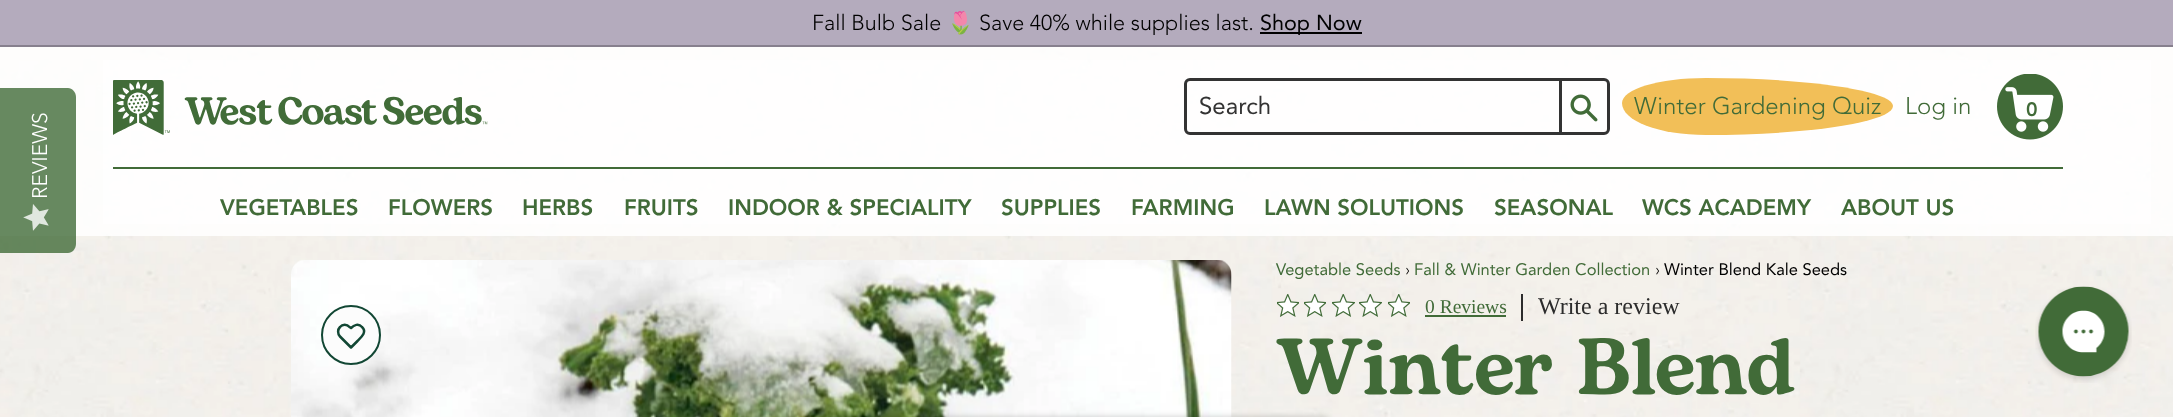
<svg xmlns="http://www.w3.org/2000/svg" width="2173" height="417" viewBox="0 0 2173 417">
  <style>
    .t1 { font: 300 21px Avenir; fill: #fff; }
    .t2 { font: 300 21.6px Avenir; fill: #000; }
    .t3 { font: 21.6px Noto Color Emoji; fill: #000; }
    .t4 { font: 21.6px Avenir; fill: #000; }
    .t5 { font: 24px Avenir; fill: #333; }
    .t6 { font: 300 24px Avenir; fill: #416b38; }
    .t7 { font: 900 19.5px Avenir; letter-spacing: -2px; fill: #416b38; }
    .t8 { font: 900 22.25px Avenir; fill: #416b38; }
    .t9 { font: 16.5px Avenir; fill: #416b38; }
    .t10 { font: 300 16.5px Avenir; fill: #060505; }
    .t11 { font: 16.5px Avenir; fill: #000; }
    .t12 { font: 19.5px Liberation Serif; fill: #416b38; }
    .t13 { font: 24px Liberation Serif; fill: #2c2c2c; }
    .t14 { font: 600 79.25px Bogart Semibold; fill: #416b38; }
  </style>
  <rect width="100%" height="100%" fill="#fff"/>
  <image x="0" y="47" width="2173" height="370" href="images/1.png"/>
  <rect x="0" y="47" width="2173" height="189" fill="#ffffffd9"/>
  <path d="M0 253V88H68C72 88 76 92 76 97V244C76 249 72 253 68 253Z" fill="#416b38cc"/>
  <text x="47" y="199" transform="rotate(-90 47 199)" class="t1">REVIEWS</text>
  <image x="23" y="204" width="26" height="27" href="images/2.png"/>
  <rect x="0" y="0" width="2173" height="45" fill="#b4abbd"/>
  <rect x="0" y="45" width="2173" height="2" fill="#87808e"/>
  <text x="812" y="30" class="t2">Fall Bulb Sale</text>
  <text x="947" y="30" class="t3">🌷</text>
  <text x="979" y="30" class="t2">Save 40% while supplies last.</text>
  <rect x="1260" y="32" width="102" height="2" fill="#000"/>
  <text x="1260" y="30" class="t4">Shop Now</text>
  <rect x="103" y="60" width="2048" height="164" fill="#ffffff99"/>
  <image x="113" y="80" width="375" height="55" href="images/3.png"/>
  <rect x="1185.5" y="79.5" width="423" height="54" rx="4.5" fill="none" stroke="#333" stroke-width="3"/>
  <rect x="1559" y="81" width="3" height="51" fill="#333"/>
  <text x="1199" y="114" class="t5">Search</text>
  <image x="1570" y="94" width="28" height="28" href="images/4.png"/>
  <path d="M1706 78C1809 78 1893 91 1893 106C1893 122 1809 135 1706 135C1659 135 1622 121 1622 103C1622 89 1659 78 1706 78Z" fill="#f2bf58"/>
  <text x="1634" y="114" class="t6">Winter Gardening Quiz</text>
  <text x="1905" y="114" class="t6">Log in</text>
  <image x="1997" y="74" width="66" height="66" href="images/5.png"/>
  <text x="2026" y="116" class="t7">0</text>
  <rect x="113" y="167" width="1950" height="2" fill="#416b38"/>
  <text x="220" y="215" class="t8">VEGETABLES</text>
  <text x="388" y="215" class="t8">FLOWERS</text>
  <text x="522" y="215" class="t8">HERBS</text>
  <text x="624" y="215" class="t8">FRUITS</text>
  <text x="728" y="215" class="t8">INDOOR &amp; SPECIALITY</text>
  <text x="1001" y="215" class="t8">SUPPLIES</text>
  <text x="1131" y="215" class="t8">FARMING</text>
  <text x="1264" y="215" class="t8">LAWN SOLUTIONS</text>
  <text x="1494" y="215" class="t8">SEASONAL</text>
  <text x="1642" y="215" class="t8">WCS ACADEMY</text>
  <text x="1841" y="215" class="t8">ABOUT US</text>
  <image x="291" y="260" width="941" height="157" href="images/6.png"/>
  <circle cx="351" cy="335" r="29" fill="#fcfcfc" stroke="#124734" stroke-width="2"/>
  <path d="M362 327C358.5 323 354 325 351 328L349.5 327C347 324 342.5 324 340 327C337.5 329.5 337.5 334 340 336.5L351 347.5L357.5 341C361 337.5 367.5 332 362 327Z" fill="none" stroke="#124734" stroke-width="2.5" stroke-linecap="round" stroke-linejoin="round"/>
  <text x="1276" y="275" class="t9">Vegetable Seeds</text>
  <text x="1405" y="275" class="t10">›</text>
  <text x="1414" y="275" class="t9">Fall &amp; Winter Garden Collection</text>
  <text x="1655" y="275" class="t10">›</text>
  <text x="1664" y="275" class="t11">Winter Blend Kale Seeds</text>
  <image x="1277" y="294" width="22" height="23" href="images/7.png"/>
  <image x="1304" y="294" width="22" height="23" href="images/8.png"/>
  <image x="1332" y="294" width="23" height="23" href="images/9.png"/>
  <image x="1359" y="294" width="23" height="23" href="images/10.png"/>
  <image x="1388" y="294" width="22" height="23" href="images/11.png"/>
  <text x="1425" y="313" class="t12">0 Reviews</text>
  <rect x="1425" y="315" width="81" height="2" fill="#416b38"/>
  <rect x="1521" y="294" width="2" height="27" fill="#2c2c2c"/>
  <text x="1538" y="314" class="t13">Write a review</text>
  <text x="1276" y="394" class="t14">Winter Blend</text>
  <image x="2035" y="286" width="97" height="97" href="images/12.png"/>
  <rect x="842" y="417" width="490" height="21" rx="12" fill="#00000033" filter="blur(3px)"/>
</svg>
